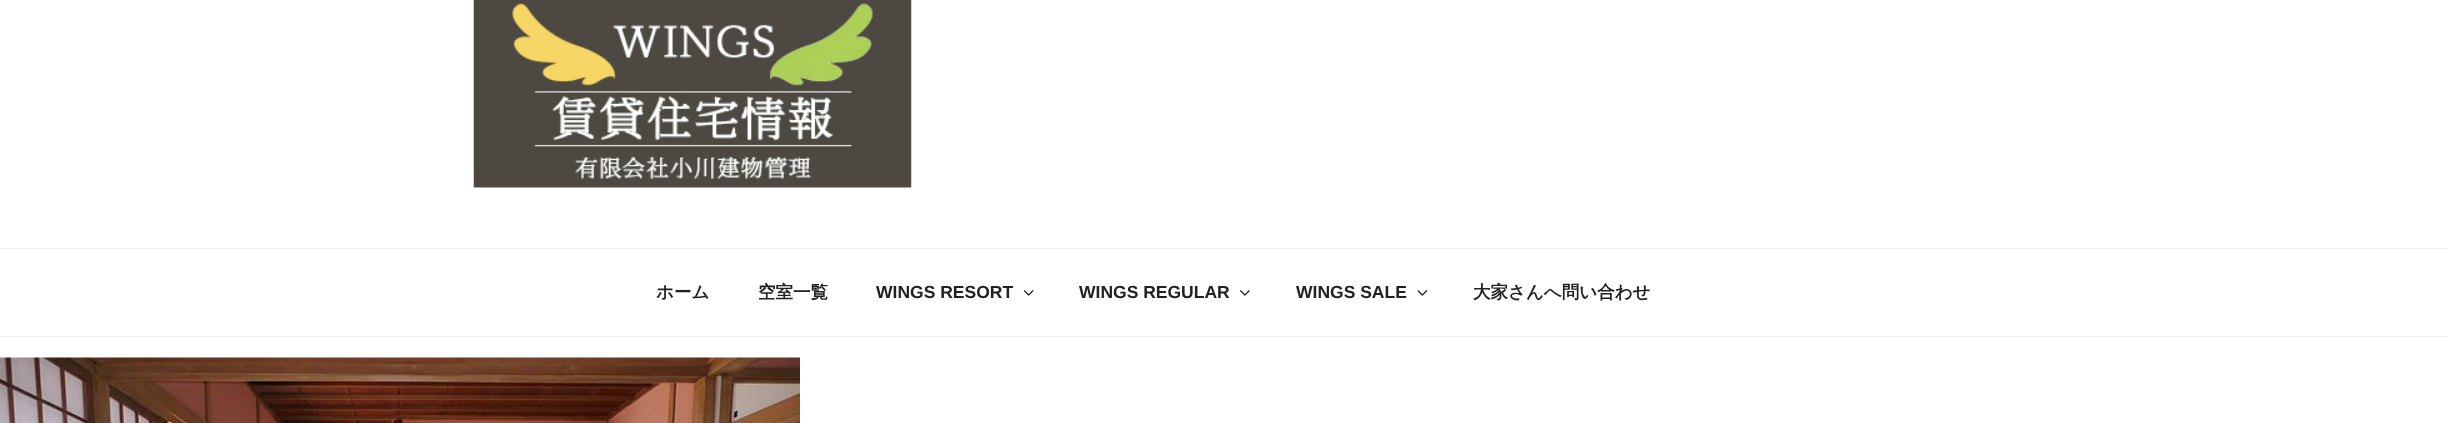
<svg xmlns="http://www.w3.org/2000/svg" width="2447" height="423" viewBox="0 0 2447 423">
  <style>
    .t1 { font: bold 17.5px WenQuanYi Zen Hei; fill: #222; }
    .t2 { font: bold 17.5px Liberation Sans; fill: #222; }
  </style>
  <rect width="100%" height="100%" fill="#fff"/>
  <image x="473" y="0" width="439" height="188" href="images/1.png"/>
  <rect x="0" y="248" width="2447" height="1" fill="#eee"/>
  <rect x="0" y="336" width="2447" height="1" fill="#eee"/>
  <text x="656" y="298" class="t1">ホーム</text>
  <text x="758" y="298" class="t1">空室一覧</text>
  <text x="876" y="298" class="t2">WINGS RESORT</text>
  <image x="1023" y="290" width="11" height="6" href="images/2.png"/>
  <text x="1079" y="298" class="t2">WINGS REGULAR</text>
  <image x="1240" y="290" width="10" height="6" href="images/3.png"/>
  <text x="1296" y="298" class="t2">WINGS SALE</text>
  <image x="1417" y="290" width="11" height="6" href="images/4.png"/>
  <text x="1473" y="298" class="t1">大家さんへ問い合わせ</text>
  <image x="0" y="357" width="800" height="66" href="images/5.png"/>
</svg>
